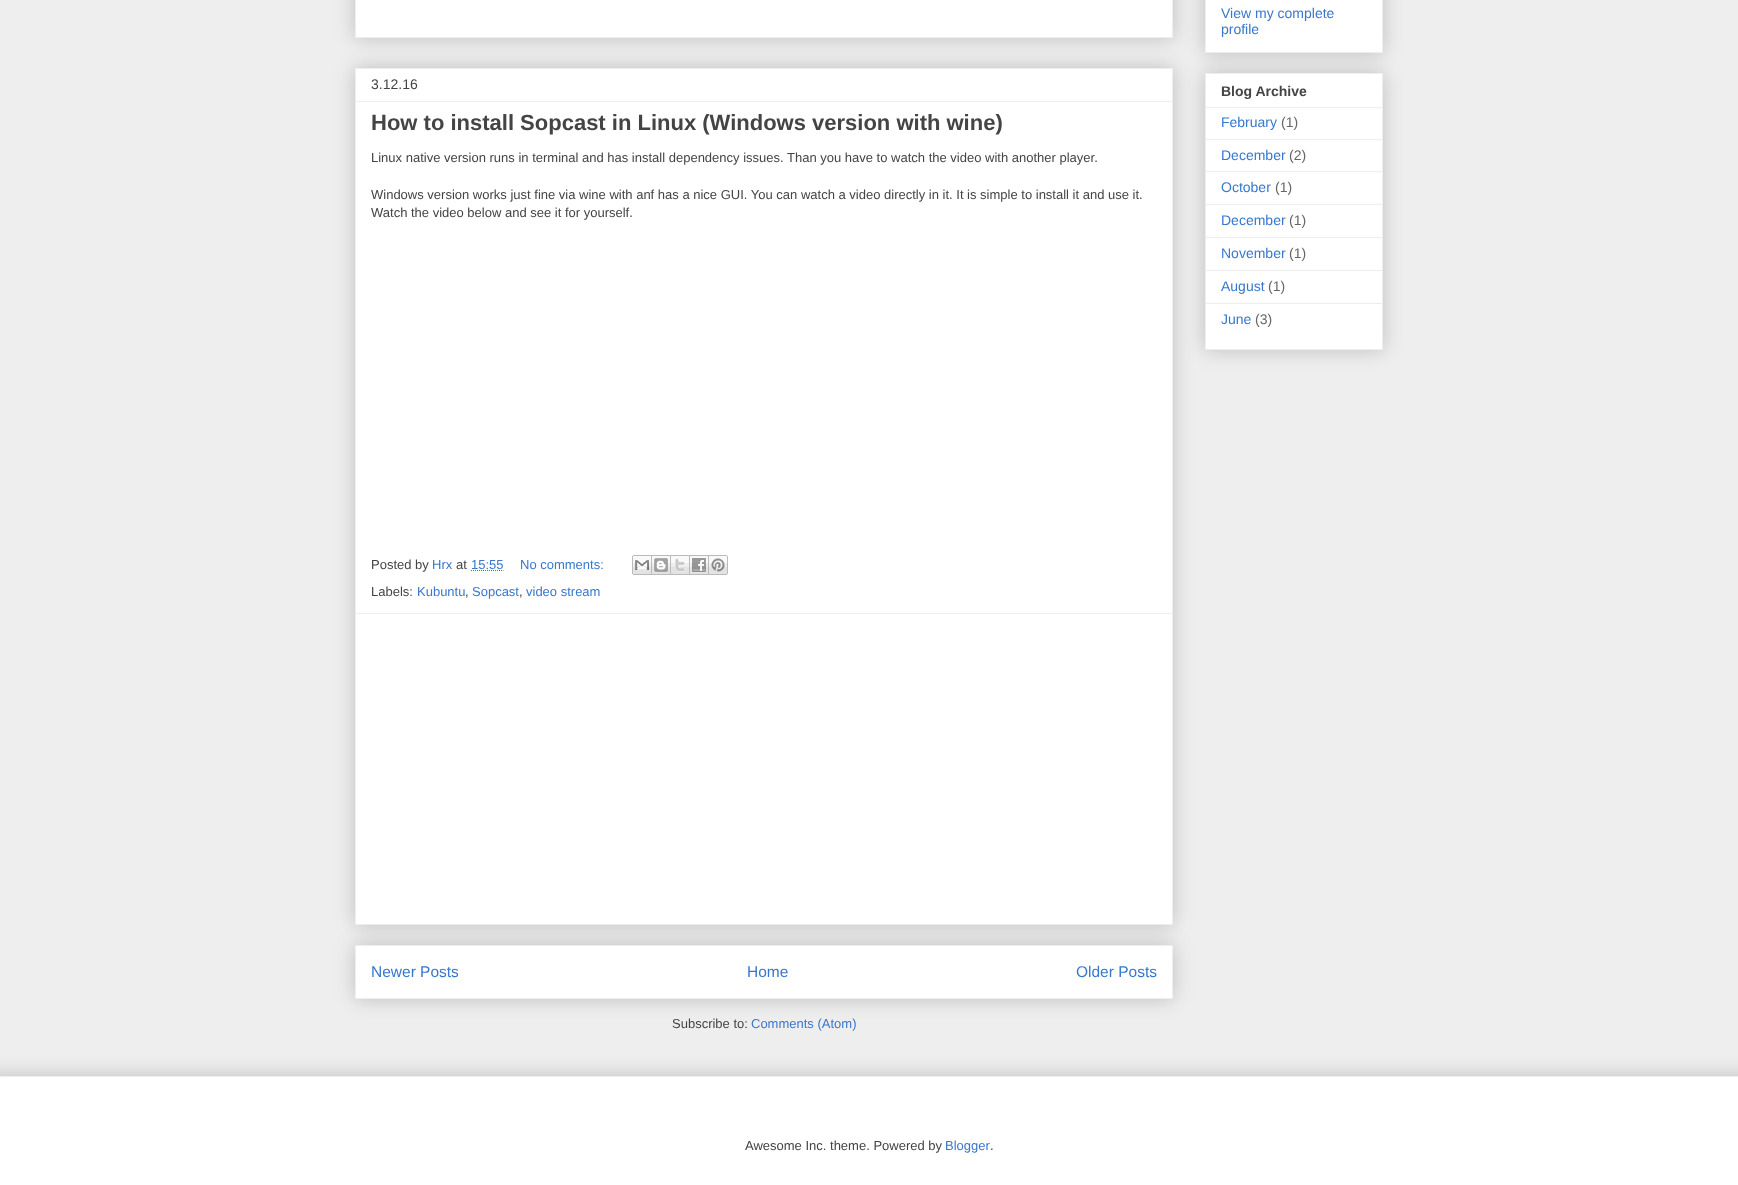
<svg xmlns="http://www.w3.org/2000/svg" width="1738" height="1185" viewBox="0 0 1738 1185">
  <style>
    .t1 { font: 14px Liberation Sans; fill: #444; }
    .t2 { font: bold 22px Liberation Sans; fill: #444; }
    .t3 { font: 13px Liberation Sans; fill: #444; }
    .t4 { font: 13px Liberation Sans; fill: #3778cd; }
    .t5 { font: 15.5px Liberation Sans; fill: #3778cd; }
    .t6 { font: 14px Liberation Sans; fill: #3778cd; }
    .t7 { font: bold 14px Liberation Sans; fill: #444; }
    .t8 { font: 14px Liberation Sans; fill: #666; }
  </style>
  <rect width="100%" height="100%" fill="#eee"/>
  <rect x="355" y="-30" width="818" height="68" fill="#00000033" filter="blur(10px)"/>
  <rect x="355.5" y="-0.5" width="817" height="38" fill="#fff" stroke="#eee"/>
  <rect x="355" y="945" width="818" height="54" fill="#00000033" filter="blur(10px)"/>
  <rect x="355.5" y="945.5" width="817" height="53" fill="#fff" stroke="#eee"/>
  <rect x="355" y="68" width="818" height="857" fill="#00000033" filter="blur(10px)"/>
  <rect x="355.5" y="68.5" width="817" height="856" fill="#fff" stroke="#eee"/>
  <text x="371" y="89" class="t1">3.12.16</text>
  <rect x="356" y="101" width="816" height="1" fill="#eee"/>
  <text x="371" y="130" class="t2">How to install Sopcast in Linux (Windows version with wine)</text>
  <text x="371" y="162" class="t3">Linux native version runs in terminal and has install dependency issues. Than you have to watch the video with another player.</text>
  <text x="371" y="199" class="t3">Windows version works just fine via wine with anf has a nice GUI. You can watch a video directly in it. It is simple to install it and use it.</text>
  <text x="371" y="217" class="t3">Watch the video below and see it for yourself.</text>
  <text x="371" y="569" class="t3">Posted by</text>
  <text x="432" y="569" class="t4">Hrx</text>
  <text x="456" y="569" class="t3">at</text>
  <text x="471" y="569" class="t4">15:55</text>
  <path d="M471 570.5H503.5" fill="none" stroke="#3778cd" stroke-dasharray="1 1"/>
  <text x="520" y="569" class="t4">No comments:</text>
  <image x="632" y="555" width="20" height="20" href="images/1.png"/>
  <image x="652" y="555" width="19" height="20" href="images/2.png"/>
  <image x="671" y="555" width="19" height="20" href="images/3.png"/>
  <image x="690" y="555" width="19" height="20" href="images/4.png"/>
  <image x="709" y="555" width="19" height="20" href="images/5.png"/>
  <text x="371" y="596" class="t3">Labels:</text>
  <text x="417" y="596" class="t4">Kubuntu</text>
  <text x="465" y="596" class="t3">,</text>
  <text x="472" y="596" class="t4">Sopcast</text>
  <text x="519" y="596" class="t3">,</text>
  <text x="526" y="596" class="t4">video stream</text>
  <rect x="356" y="613" width="816" height="1" fill="#eee"/>
  <text x="371" y="977" class="t5">Newer Posts</text>
  <text x="747" y="977" class="t5">Home</text>
  <text x="1076" y="977" class="t5">Older Posts</text>
  <text x="672" y="1028" class="t3">Subscribe to:</text>
  <text x="751" y="1028" class="t4">Comments (Atom)</text>
  <rect x="1205" y="-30" width="178" height="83" fill="#00000033" filter="blur(10px)"/>
  <rect x="1205.5" y="-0.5" width="177" height="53" fill="#fff" stroke="#eee"/>
  <text x="1221" y="18" class="t6">View my complete</text>
  <text x="1221" y="34" class="t6">profile</text>
  <rect x="1205" y="73" width="178" height="277" fill="#00000033" filter="blur(10px)"/>
  <rect x="1205.5" y="73.5" width="177" height="276" fill="#fff" stroke="#eee"/>
  <text x="1221" y="96" class="t7">Blog Archive</text>
  <rect x="1206" y="107" width="176" height="1" fill="#eee"/>
  <text x="1221" y="127" class="t6">February</text>
  <text x="1281" y="127" class="t8">(1)</text>
  <rect x="1206" y="139" width="176" height="1" fill="#eee"/>
  <text x="1221" y="160" class="t6">December</text>
  <text x="1289" y="160" class="t8">(2)</text>
  <rect x="1206" y="171" width="176" height="1" fill="#eee"/>
  <text x="1221" y="192" class="t6">October</text>
  <text x="1275" y="192" class="t8">(1)</text>
  <rect x="1206" y="204" width="176" height="1" fill="#eee"/>
  <text x="1221" y="225" class="t6">December</text>
  <text x="1289" y="225" class="t8">(1)</text>
  <rect x="1206" y="237" width="176" height="1" fill="#eee"/>
  <text x="1221" y="258" class="t6">November</text>
  <text x="1289" y="258" class="t8">(1)</text>
  <rect x="1206" y="270" width="176" height="1" fill="#eee"/>
  <text x="1221" y="291" class="t6">August</text>
  <text x="1268" y="291" class="t8">(1)</text>
  <rect x="1206" y="303" width="176" height="1" fill="#eee"/>
  <text x="1221" y="324" class="t6">June</text>
  <text x="1255" y="324" class="t8">(3)</text>
  <rect x="-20" y="1076" width="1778" height="109" fill="#00000033" filter="blur(10px)"/>
  <rect x="0" y="1077" width="1738" height="108" fill="#fff"/>
  <rect x="0" y="1076" width="1738" height="1" fill="#eee"/>
  <text x="745" y="1150" class="t3">Awesome Inc. theme. Powered by</text>
  <text x="945" y="1150" class="t4">Blogger</text>
  <text x="990" y="1150" class="t3">.</text>
</svg>
